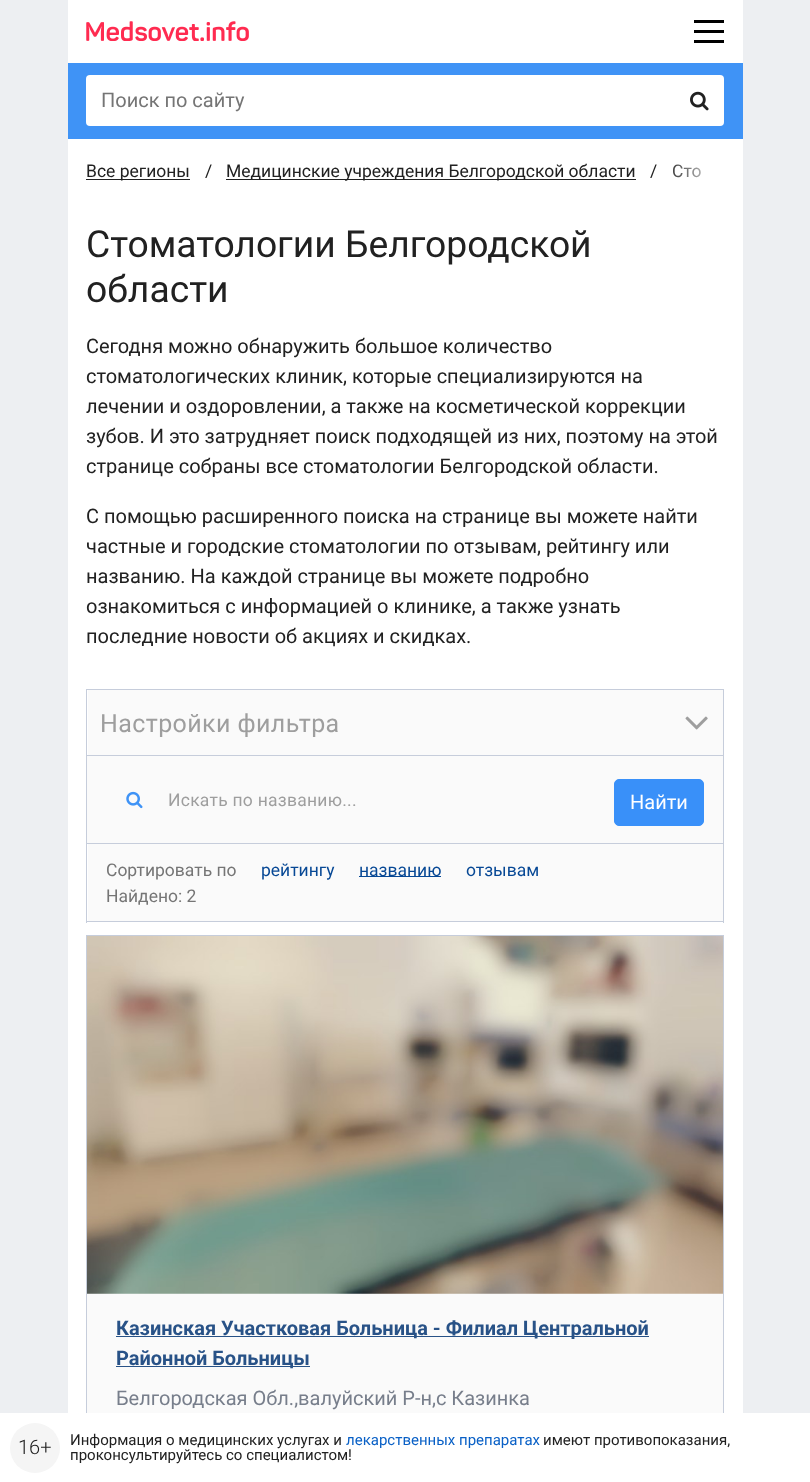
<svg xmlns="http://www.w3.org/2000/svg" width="810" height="1482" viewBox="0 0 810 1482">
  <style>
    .t1 { font: 20px Roboto; fill: #757575; }
    .t2 { font: 17.5px Roboto; fill: #212121; }
    .t3 { font: 37.25px Roboto; fill: #212121; }
    .t4 { font: 20px Roboto; fill: #212121; }
    .t5 { font: 25px Roboto; letter-spacing: 0.4px; fill: #9e9e9e; }
    .t6 { font: 17.5px Roboto; letter-spacing: 0.25px; fill: #9e9e9e; }
    .t7 { font: 20px Roboto; fill: #fff; }
    .t8 { font: 17.5px Roboto; fill: #757575; }
    .t9 { font: 17.5px Roboto; fill: #074895; }
    .t10 { font: bold 20px Roboto; fill: #285287; }
    .t11 { font: 20px Roboto; fill: #777e8b; }
    .t12 { font: 300 20px Roboto; fill: #212121; }
    .t13 { font: 15px Roboto; fill: #212121; }
    .t14 { font: 15px Roboto; fill: #0960c6; }
  </style>
  <defs>
    <linearGradient id="g1" gradientUnits="userSpaceOnUse" x1="664" y1="172" x2="724" y2="172"><stop offset="0" stop-color="#fff" stop-opacity="0"/><stop offset="1" stop-color="#fff"/></linearGradient>
  </defs>
  <rect width="100%" height="100%" fill="#edeff2"/>
  <rect x="68" y="0" width="675" height="63" fill="#fff"/>
  <image x="86" y="21" width="163" height="20" href="images/1.png"/>
  <rect x="694" y="20" width="30" height="3" fill="#000"/>
  <rect x="694" y="30" width="30" height="3" fill="#000"/>
  <rect x="694" y="40" width="30" height="3" fill="#000"/>
  <rect x="68" y="63" width="675" height="76" fill="#3f93f6"/>
  <rect x="86" y="75" width="638" height="51" rx="4" fill="#fff"/>
  <text x="101" y="107" class="t1">Поиск по сайту</text>
  <image x="690" y="91" width="19" height="20" href="images/2.png"/>
  <rect x="68" y="139" width="675" height="1274" fill="#fff"/>
  <rect x="86" y="179" width="104" height="1" fill="#212121"/>
  <text x="86" y="177" class="t2">Все регионы</text>
  <text x="205" y="177" class="t2">/</text>
  <rect x="226" y="179" width="410" height="1" fill="#212121"/>
  <text x="226" y="177" class="t2">Медицинские учреждения Белгородской области</text>
  <text x="650" y="177" class="t2">/</text>
  <text x="672" y="177" class="t2">Сто</text>
  <rect x="672" y="164" width="29" height="14" fill="url(#g1)"/>
  <text x="86" y="257" class="t3">Стоматологии Белгородской</text>
  <text x="86" y="302" class="t3">области</text>
  <text x="86" y="353" class="t4">Сегодня можно обнаружить большое количество</text>
  <text x="86" y="383" class="t4">стоматологических клиник, которые специализируются на</text>
  <text x="86" y="413" class="t4">лечении и оздоровлении, а также на косметической коррекции</text>
  <text x="86" y="443" class="t4">зубов. И это затрудняет поиск подходящей из них, поэтому на этой</text>
  <text x="86" y="473" class="t4">странице собраны все стоматологии Белгородской области.</text>
  <text x="86" y="523" class="t4">С помощью расширенного поиска на странице вы можете найти</text>
  <text x="86" y="553" class="t4">частные и городские стоматологии по отзывам, рейтингу или</text>
  <text x="86" y="583" class="t4">названию. На каждой странице вы можете подробно</text>
  <text x="86" y="613" class="t4">ознакомиться с информацией о клинике, а также узнать</text>
  <text x="86" y="643" class="t4">последние новости об акциях и скидках.</text>
  <rect x="88" y="690" width="635" height="65" fill="#fafafa"/>
  <rect x="86" y="689" width="638" height="1" fill="#c6cddb"/>
  <rect x="723" y="689" width="1" height="66" fill="#c6cddb"/>
  <rect x="86" y="689" width="1" height="66" fill="#c6cddb"/>
  <text x="100" y="732" class="t5">Настройки фильтра</text>
  <image x="685" y="716" width="23" height="14" href="images/3.png"/>
  <rect x="86.5" y="755.5" width="637" height="88" fill="#fafafa" stroke="#c6cddb"/>
  <image x="126" y="791" width="17" height="18" href="images/4.png"/>
  <text x="168" y="806" class="t6">Искать по названию...</text>
  <rect x="614.5" y="779.5" width="89" height="46" rx="4.5" fill="#3990f9" stroke="#3990f9"/>
  <text x="630" y="809" class="t7">Найти</text>
  <rect x="88" y="844" width="635" height="77" fill="#fafafa"/>
  <rect x="723" y="844" width="1" height="79" fill="#c6cddb"/>
  <rect x="86" y="921" width="638" height="1" fill="#c6cddb"/>
  <rect x="86" y="844" width="1" height="79" fill="#c6cddb"/>
  <text x="106" y="876" class="t8">Сортировать по</text>
  <text x="261" y="876" class="t9">рейтингу</text>
  <rect x="359" y="876" width="82" height="1" fill="#074895"/>
  <text x="359" y="876" class="t9">названию</text>
  <text x="466" y="876" class="t9">отзывам</text>
  <text x="106" y="902" class="t8">Найдено: 2</text>
  <rect x="87" y="1293" width="636" height="120" fill="#fafafa"/>
  <image x="87" y="936" width="636" height="358" href="images/5.png"/>
  <rect x="86.5" y="935.5" width="637" height="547" fill="none" stroke="#c6cddb"/>
  <rect x="116" y="1336" width="533" height="1" fill="#285287"/>
  <text x="116" y="1335" class="t10">Казинская Участковая Больница - Филиал Центральной</text>
  <rect x="116" y="1366" width="194" height="1" fill="#285287"/>
  <text x="116" y="1365" class="t10">Районной Больницы</text>
  <text x="116" y="1405" class="t11">Белгородская Обл.,валуйский Р-н,с Казинка</text>
  <rect x="0" y="1413" width="810" height="69" fill="#fff"/>
  <circle cx="35" cy="1448" r="25" fill="#f5f5f5"/>
  <text x="18" y="1454" class="t12">16+</text>
  <text x="70" y="1445" class="t13">Информация о медицинских услугах и</text>
  <text x="346" y="1445" class="t14">лекарственных препаратах</text>
  <text x="543" y="1445" class="t13">имеют противопоказания,</text>
  <text x="70" y="1460" class="t13">проконсультируйтесь со специалистом!</text>
</svg>
